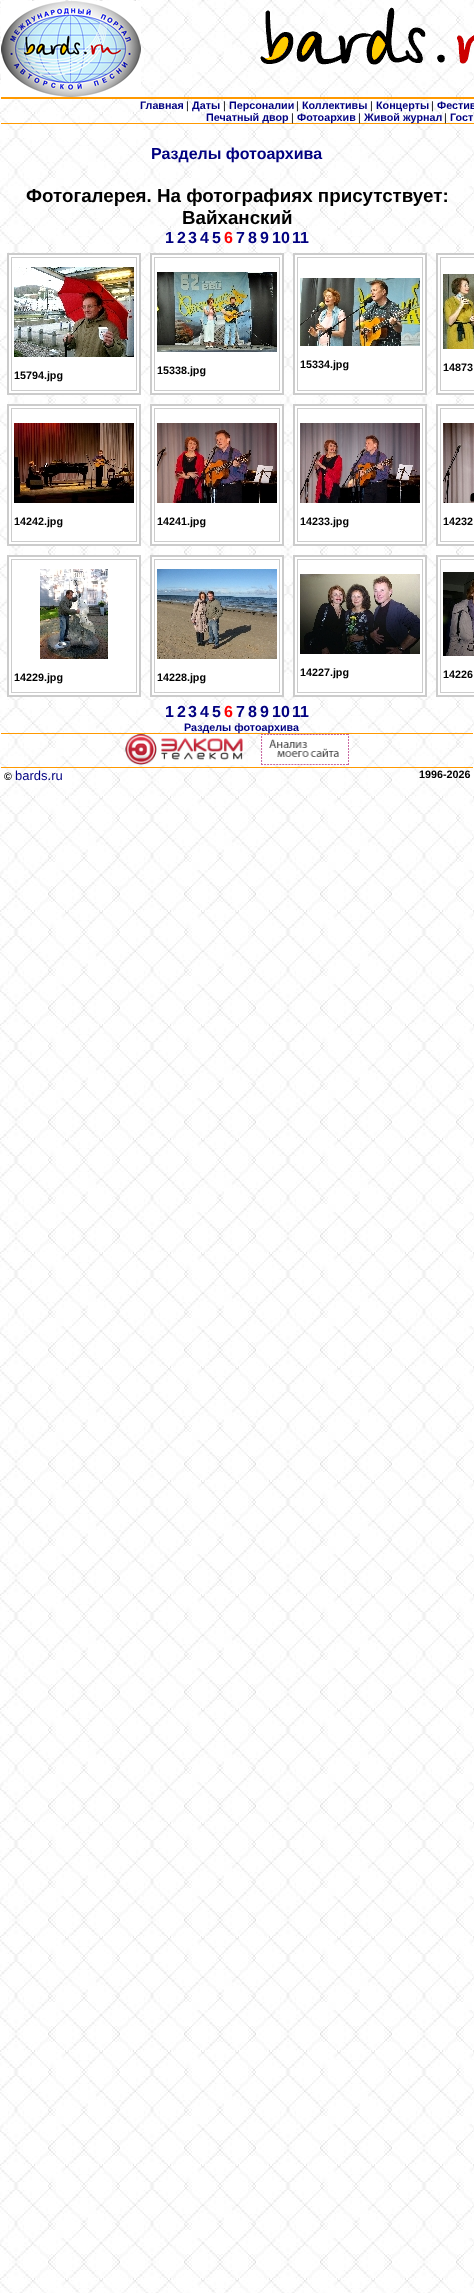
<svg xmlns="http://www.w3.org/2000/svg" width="474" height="2293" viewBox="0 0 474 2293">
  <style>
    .t1 { font: bold 10.75px Liberation Sans; fill: #000080; }
    .t2 { font: 10.75px Liberation Sans; fill: #000; }
    .t3 { font: bold 16px Liberation Sans; fill: #000080; }
    .t4 { font: bold 18.75px Liberation Sans; fill: #000; }
    .t5 { font: bold 16px Liberation Sans; fill: #f00; }
    .t6 { font: bold 10.75px Liberation Sans; fill: #000; }
    .t7 { font: 13px Liberation Sans; fill: #000080; }
  </style>
  <rect width="100%" height="100%" fill="#fff"/>
  <image x="0" y="0" width="474" height="2293" href="images/1.png"/>
  <image x="1" y="1" width="140" height="96" href="images/2.png"/>
  <image x="260" y="7" width="214" height="58" href="images/3.png"/>
  <rect x="1" y="97" width="473" height="2" fill="#f90"/>
  <text x="140" y="109" class="t1">Главная</text>
  <text x="186" y="109" class="t2">|</text>
  <text x="192" y="109" class="t1">Даты</text>
  <text x="223" y="109" class="t2">|</text>
  <text x="229" y="109" class="t1">Персоналии</text>
  <text x="296" y="109" class="t2">|</text>
  <text x="302" y="109" class="t1">Коллективы</text>
  <text x="370" y="109" class="t2">|</text>
  <text x="376" y="109" class="t1">Концерты</text>
  <text x="431" y="109" class="t2">|</text>
  <text x="437" y="109" class="t1">Фестив</text>
  <rect x="1" y="123" width="473" height="1" fill="#f90"/>
  <text x="206" y="121" class="t1">Печатный двор</text>
  <text x="291" y="121" class="t2">|</text>
  <text x="297" y="121" class="t1">Фотоархив</text>
  <text x="358" y="121" class="t2">|</text>
  <text x="364" y="121" class="t1">Живой журнал</text>
  <text x="444" y="121" class="t2">|</text>
  <text x="450" y="121" class="t1">Гост</text>
  <text x="151" y="159" class="t3">Разделы фотоархива</text>
  <text x="26" y="202" class="t4">Фотогалерея. На фотографиях присутствует:</text>
  <text x="182" y="224" class="t4">Вайханский</text>
  <text x="165" y="243" class="t3">1</text>
  <text x="177" y="243" class="t3">2</text>
  <text x="188" y="243" class="t3">3</text>
  <text x="200" y="243" class="t3">4</text>
  <text x="212" y="243" class="t3">5</text>
  <text x="224" y="243" class="t5">6</text>
  <text x="236" y="243" class="t3">7</text>
  <text x="248" y="243" class="t3">8</text>
  <text x="260" y="243" class="t3">9</text>
  <text x="272" y="243" class="t3">10</text>
  <text x="292" y="243" class="t3">11</text>
  <rect x="8" y="254" width="132" height="140" fill="#fff" stroke="#ccc" stroke-width="2"/>
  <rect x="11.5" y="257.5" width="125" height="133" fill="none" stroke="#ccc"/>
  <image x="14" y="267" width="120" height="90" href="images/4.png"/>
  <text x="14" y="379" class="t6">15794.jpg</text>
  <rect x="151" y="254" width="132" height="140" fill="#fff" stroke="#ccc" stroke-width="2"/>
  <rect x="154.5" y="257.5" width="125" height="133" fill="none" stroke="#ccc"/>
  <image x="157" y="272" width="120" height="80" href="images/5.png"/>
  <text x="157" y="374" class="t6">15338.jpg</text>
  <rect x="294" y="254" width="132" height="140" fill="#fff" stroke="#ccc" stroke-width="2"/>
  <rect x="297.5" y="257.5" width="125" height="133" fill="none" stroke="#ccc"/>
  <image x="300" y="278" width="120" height="68" href="images/6.png"/>
  <text x="300" y="368" class="t6">15334.jpg</text>
  <rect x="437" y="254" width="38" height="140" fill="#fff" stroke="#ccc" stroke-width="2"/>
  <rect x="440.5" y="257.5" width="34" height="133" fill="none" stroke="#ccc"/>
  <image x="443" y="274" width="31" height="75" href="images/7.png"/>
  <text x="443" y="371" class="t6">14873</text>
  <rect x="8" y="405" width="132" height="140" fill="#fff" stroke="#ccc" stroke-width="2"/>
  <rect x="11.5" y="408.5" width="125" height="133" fill="none" stroke="#ccc"/>
  <image x="14" y="423" width="120" height="80" href="images/8.png"/>
  <text x="14" y="525" class="t6">14242.jpg</text>
  <rect x="151" y="405" width="132" height="140" fill="#fff" stroke="#ccc" stroke-width="2"/>
  <rect x="154.5" y="408.5" width="125" height="133" fill="none" stroke="#ccc"/>
  <image x="157" y="423" width="120" height="80" href="images/9.png"/>
  <text x="157" y="525" class="t6">14241.jpg</text>
  <rect x="294" y="405" width="132" height="140" fill="#fff" stroke="#ccc" stroke-width="2"/>
  <rect x="297.5" y="408.5" width="125" height="133" fill="none" stroke="#ccc"/>
  <image x="300" y="423" width="120" height="80" href="images/10.png"/>
  <text x="300" y="525" class="t6">14233.jpg</text>
  <rect x="437" y="405" width="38" height="140" fill="#fff" stroke="#ccc" stroke-width="2"/>
  <rect x="440.5" y="408.5" width="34" height="133" fill="none" stroke="#ccc"/>
  <image x="443" y="423" width="31" height="80" href="images/11.png"/>
  <text x="443" y="525" class="t6">14232</text>
  <rect x="8" y="556" width="132" height="140" fill="#fff" stroke="#ccc" stroke-width="2"/>
  <rect x="11.5" y="559.5" width="125" height="133" fill="none" stroke="#ccc"/>
  <image x="40" y="569" width="68" height="90" href="images/12.png"/>
  <text x="14" y="681" class="t6">14229.jpg</text>
  <rect x="151" y="556" width="132" height="140" fill="#fff" stroke="#ccc" stroke-width="2"/>
  <rect x="154.5" y="559.5" width="125" height="133" fill="none" stroke="#ccc"/>
  <image x="157" y="569" width="120" height="90" href="images/13.png"/>
  <text x="157" y="681" class="t6">14228.jpg</text>
  <rect x="294" y="556" width="132" height="140" fill="#fff" stroke="#ccc" stroke-width="2"/>
  <rect x="297.5" y="559.5" width="125" height="133" fill="none" stroke="#ccc"/>
  <image x="300" y="574" width="120" height="80" href="images/14.png"/>
  <text x="300" y="676" class="t6">14227.jpg</text>
  <rect x="437" y="556" width="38" height="140" fill="#fff" stroke="#ccc" stroke-width="2"/>
  <rect x="440.5" y="559.5" width="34" height="133" fill="none" stroke="#ccc"/>
  <image x="443" y="572" width="31" height="84" href="images/15.png"/>
  <text x="443" y="678" class="t6">14226</text>
  <text x="165" y="717" class="t3">1</text>
  <text x="177" y="717" class="t3">2</text>
  <text x="188" y="717" class="t3">3</text>
  <text x="200" y="717" class="t3">4</text>
  <text x="212" y="717" class="t3">5</text>
  <text x="224" y="717" class="t5">6</text>
  <text x="236" y="717" class="t3">7</text>
  <text x="248" y="717" class="t3">8</text>
  <text x="260" y="717" class="t3">9</text>
  <text x="272" y="717" class="t3">10</text>
  <text x="292" y="717" class="t3">11</text>
  <rect x="1" y="733" width="472" height="1" fill="#f90"/>
  <text x="184" y="731" class="t1">Разделы фотоархива</text>
  <image x="125" y="734" width="118" height="31" href="images/16.png"/>
  <image x="261" y="734" width="88" height="31" href="images/17.png"/>
  <rect x="1" y="767" width="472" height="1" fill="#f90"/>
  <text x="4" y="780" class="t6">©</text>
  <text x="15" y="780" class="t7">bards.ru</text>
  <text x="419" y="778" class="t6">1996-2026</text>
</svg>
